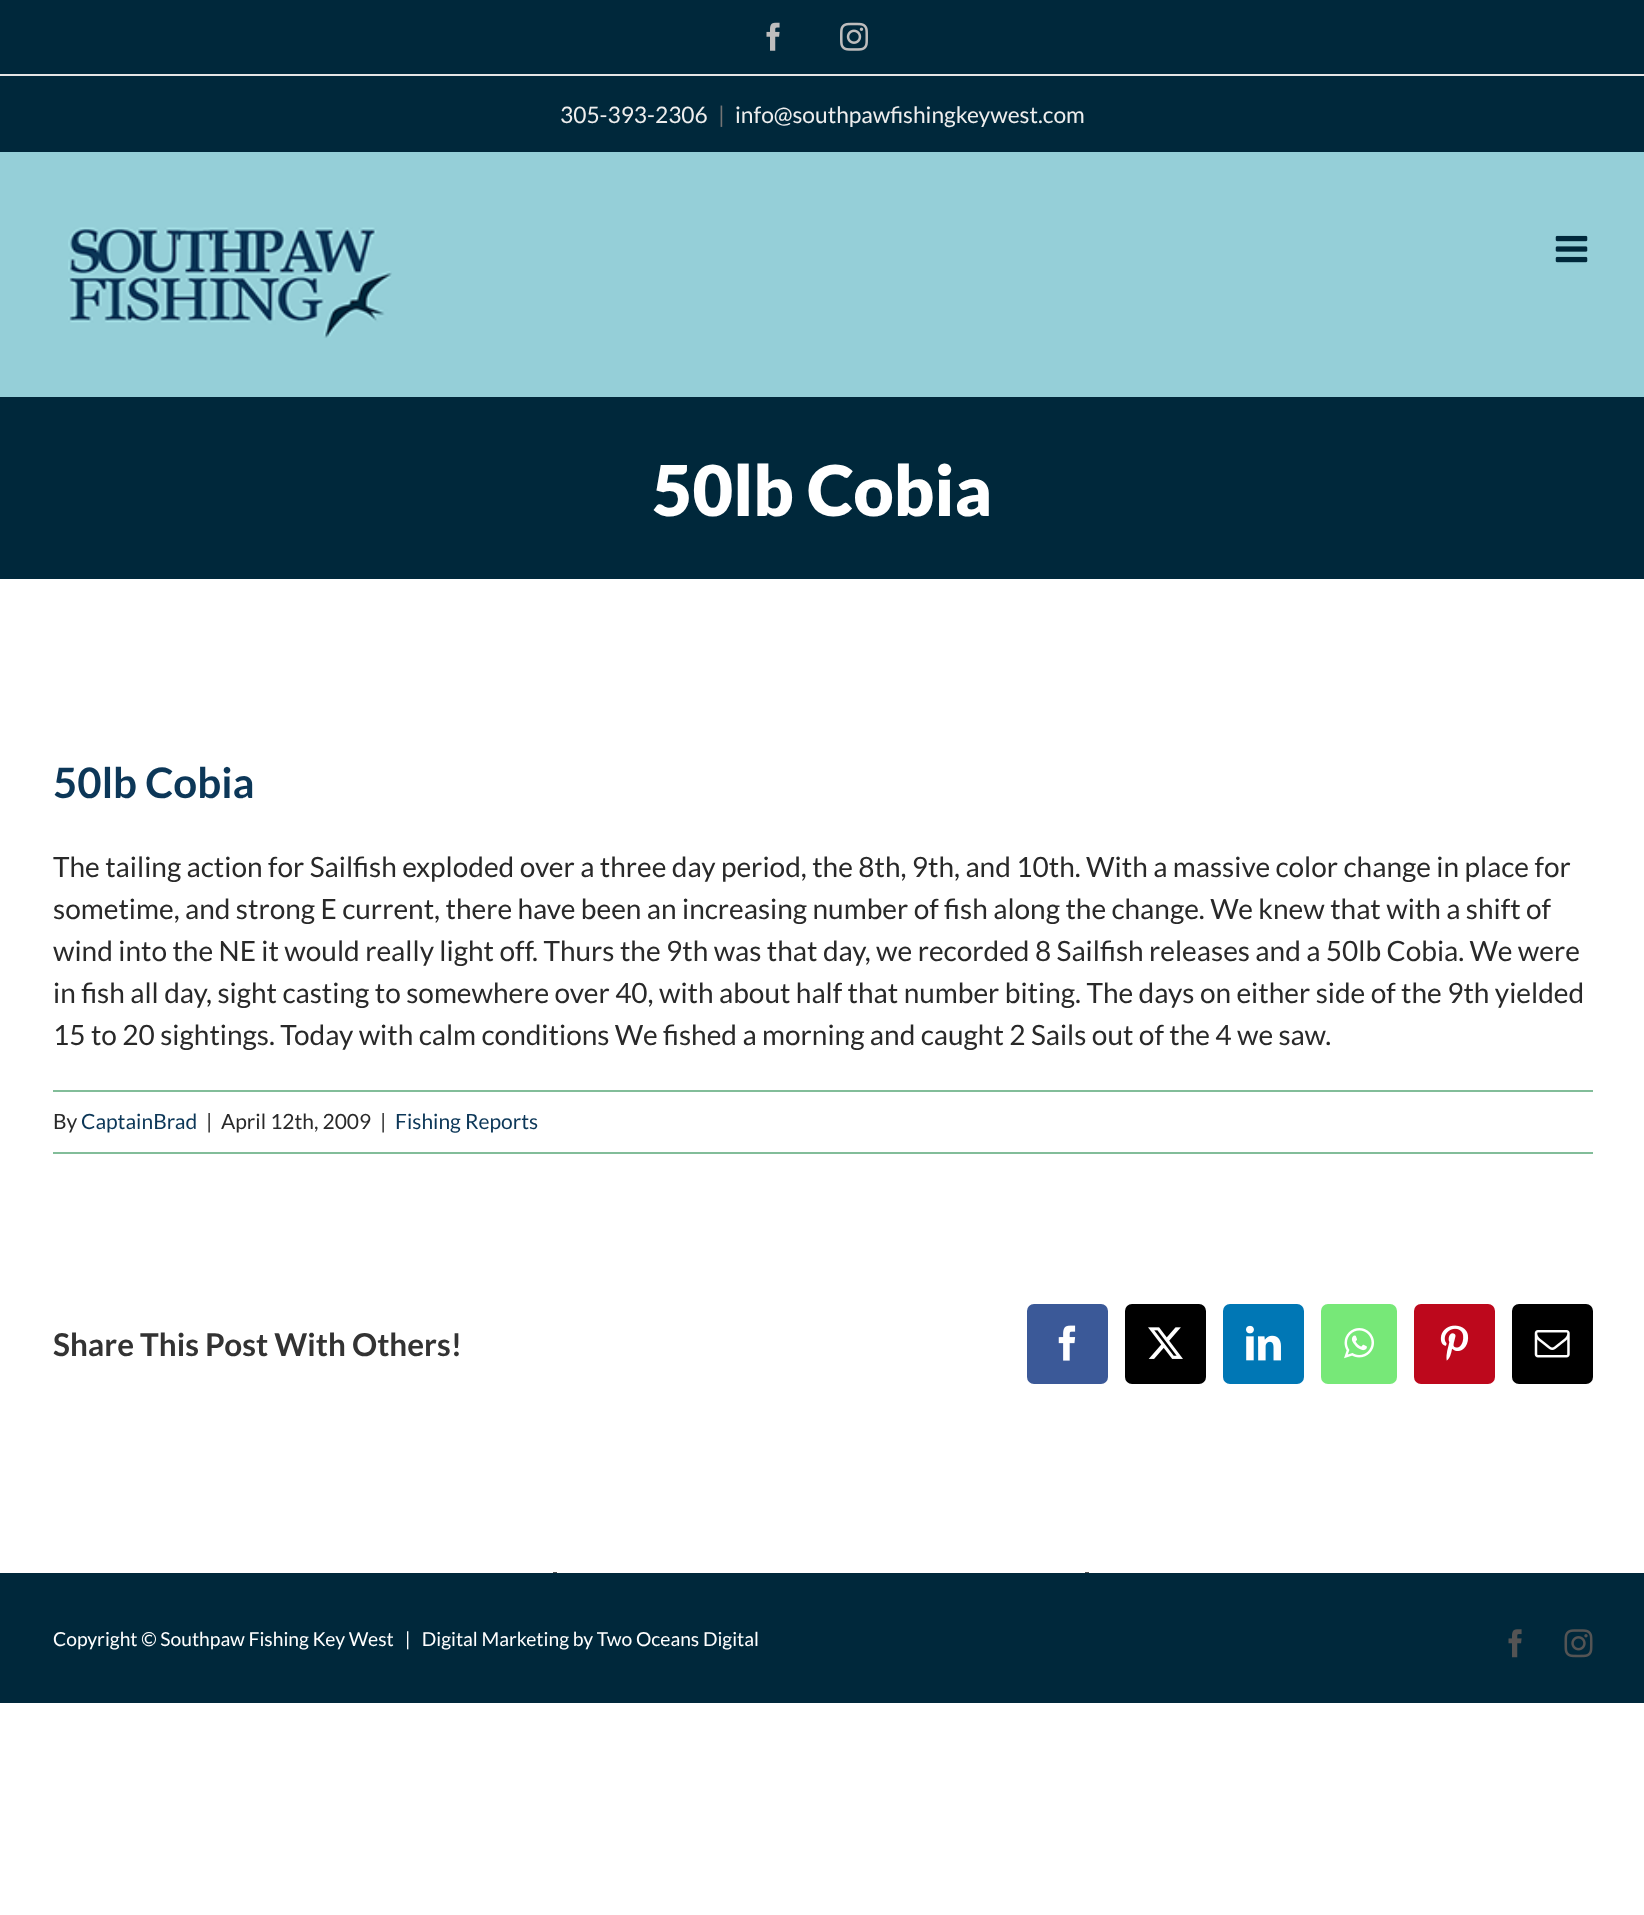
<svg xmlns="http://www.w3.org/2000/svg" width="1644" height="1915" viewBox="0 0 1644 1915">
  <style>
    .t1 { font: 22.75px Lato; fill: #eee; }
    .t2 { font: 22.75px Lato; fill: #747474; }
    .t3 { font: 900 70px Lato; fill: #fff; }
    .t4 { font: bold 42px Lato; fill: #0c3758; }
    .t5 { font: 28px Lato; fill: #292929; }
    .t6 { font: 21px Lato; fill: #292929; }
    .t7 { font: 21px Lato; fill: #0c3758; }
    .t8 { font: bold 31.5px Lato; fill: #333; }
    .t9 { font: 19.25px Lato; fill: #fff; }
  </style>
  <rect width="100%" height="100%" fill="#fff"/>
  <rect x="0" y="0" width="1644" height="152" fill="#00283b"/>
  <rect x="0" y="74" width="1644" height="2" fill="#e5e5e5"/>
  <image x="766" y="22" width="14" height="29" href="images/1.png"/>
  <image x="840" y="22" width="28" height="29" href="images/2.png"/>
  <text x="560" y="123" class="t1">305-393-2306</text>
  <text x="718" y="123" class="t2">|</text>
  <text x="735" y="123" class="t1">info@southpawfishingkeywest.com</text>
  <rect x="0" y="152" width="1644" height="245" fill="#95cfd8"/>
  <image x="68" y="227" width="324" height="111" href="images/3.png"/>
  <image x="1555" y="235" width="33" height="28" href="images/4.png"/>
  <rect x="0" y="397" width="1644" height="182" fill="#00283b"/>
  <text x="652" y="516" class="t3">50lb Cobia</text>
  <text x="53" y="798" class="t4">50lb Cobia</text>
  <text x="53" y="877" class="t5">The tailing action for Sailfish exploded over a three day period, the 8th, 9th, and 10th. With a massive color change in place for</text>
  <text x="53" y="919" class="t5">sometime, and strong E current, there have been an increasing number of fish along the change. We knew that with a shift of</text>
  <text x="53" y="961" class="t5">wind into the NE it would really light off. Thurs the 9th was that day, we recorded 8 Sailfish releases and a 50lb Cobia. We were</text>
  <text x="53" y="1003" class="t5">in fish all day, sight casting to somewhere over 40, with about half that number biting. The days on either side of the 9th yielded</text>
  <text x="53" y="1045" class="t5">15 to 20 sightings. Today with calm conditions We fished a morning and caught 2 Sails out of the 4 we saw.</text>
  <rect x="53" y="1090" width="1540" height="2" fill="#82bd99"/>
  <rect x="53" y="1152" width="1540" height="2" fill="#82bd99"/>
  <text x="53" y="1129" class="t6">By</text>
  <text x="81" y="1129" class="t7">CaptainBrad</text>
  <text x="206" y="1129" class="t6">|</text>
  <text x="221" y="1129" class="t6">April 12th, 2009</text>
  <text x="380" y="1129" class="t6">|</text>
  <text x="395" y="1129" class="t7">Fishing Reports</text>
  <text x="53" y="1356" class="t8">Share This Post With Others!</text>
  <rect x="1028" y="1305" width="79" height="78" rx="6" fill="#3b5998" stroke="#3b5998" stroke-width="2"/>
  <image x="1058" y="1325" width="18" height="36" href="images/5.png"/>
  <rect x="1126" y="1305" width="79" height="78" rx="6" fill="#000" stroke="#000" stroke-width="2"/>
  <image x="1148" y="1327" width="35" height="32" href="images/6.png"/>
  <rect x="1224" y="1305" width="79" height="78" rx="6" fill="#0077b5" stroke="#0077b5" stroke-width="2"/>
  <image x="1246" y="1325" width="35" height="36" href="images/7.png"/>
  <rect x="1322" y="1305" width="74" height="78" rx="6" fill="#77e878" stroke="#77e878" stroke-width="2"/>
  <image x="1344" y="1328" width="30" height="31" href="images/8.png"/>
  <rect x="1415" y="1305" width="79" height="78" rx="6" fill="#bd081c" stroke="#bd081c" stroke-width="2"/>
  <image x="1440" y="1325" width="29" height="36" href="images/9.png"/>
  <rect x="1513" y="1305" width="79" height="78" rx="6" fill="#000" stroke="#000" stroke-width="2"/>
  <image x="1534" y="1330" width="36" height="28" href="images/10.png"/>
  <rect x="553" y="1572" width="4" height="1" fill="#505152"/>
  <rect x="1085" y="1572" width="4" height="1" fill="#505152"/>
  <rect x="0" y="1573" width="1644" height="130" fill="#00283b"/>
  <text x="53" y="1646" class="t9" xml:space="preserve">Copyright © Southpaw Fishing Key West   |   Digital Marketing by Two Oceans Digital</text>
  <image x="1508" y="1629" width="14" height="29" href="images/11.png"/>
  <image x="1564" y="1629" width="29" height="29" href="images/12.png"/>
</svg>
